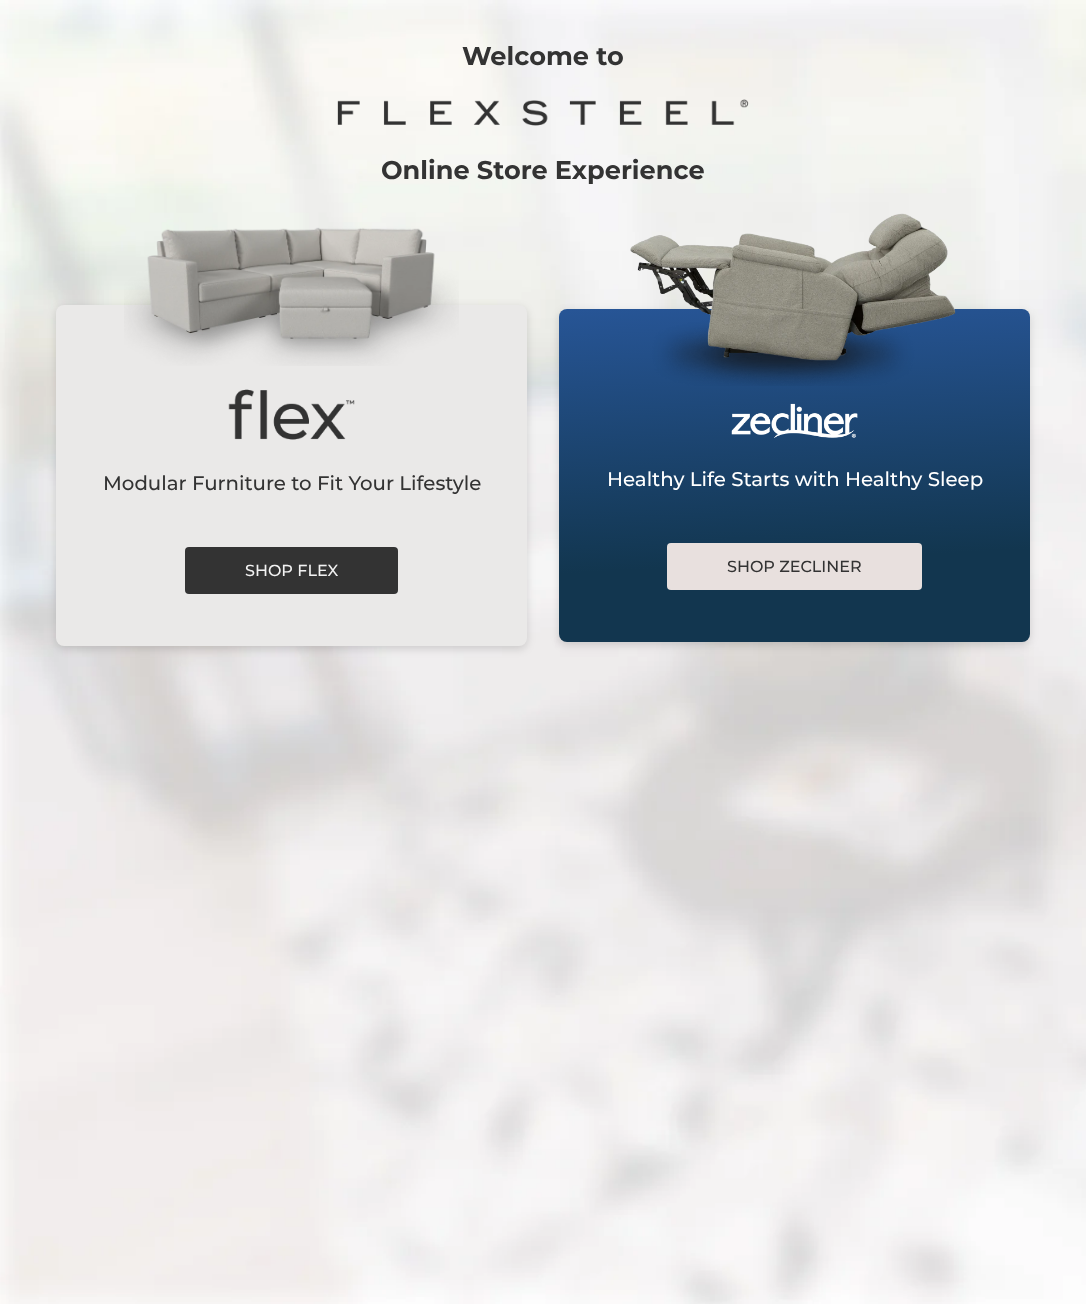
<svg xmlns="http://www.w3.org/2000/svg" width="1086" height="1304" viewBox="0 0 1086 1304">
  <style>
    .t1 { font: bold 25.6px Montserrat; fill: #333; }
    .t2 { font: 500 19.75px Montserrat; fill: #333; }
    .t3 { font: 500 16px Montserrat; fill: #f2f2f2; }
    .t4 { font: 500 19.75px Montserrat; fill: #fff; }
    .t5 { font: 500 16px Montserrat; fill: #333; }
  </style>
  <defs>
    <linearGradient id="g1" gradientUnits="userSpaceOnUse" x1="785" y1="297" x2="804" y2="654"><stop offset="0" stop-color="#275596"/><stop offset="0.74" stop-color="#12364f"/></linearGradient>
  </defs>
  <rect width="100%" height="100%" fill="#fff"/>
  <image x="0" y="0" width="1086" height="1304" href="images/1.png"/>
  <text x="462" y="65" class="t1">Welcome to</text>
  <image x="337" y="99" width="412" height="27" href="images/2.png"/>
  <text x="381" y="179" class="t1">Online Store Experience</text>
  <rect x="56" y="308" width="471" height="341" rx="8" fill="#00000024" filter="blur(4px)"/>
  <rect x="56" y="305" width="471" height="341" rx="8" fill="#eae9e8"/>
  <image x="124" y="227" width="335" height="139" href="images/3.png"/>
  <image x="228" y="389" width="127" height="51" href="images/4.png"/>
  <text x="103" y="490" class="t2">Modular Furniture to Fit Your Lifestyle</text>
  <rect x="185" y="547" width="213" height="47" rx="4" fill="#333"/>
  <text x="245" y="576" class="t3">SHOP FLEX</text>
  <rect x="559" y="312" width="471" height="333" rx="8" fill="#00000024" filter="blur(4px)"/>
  <rect x="559" y="309" width="471" height="333" rx="8" fill="url(#g1)"/>
  <image x="630" y="213" width="326" height="173" href="images/5.png"/>
  <image x="731" y="403" width="127" height="35" href="images/6.png"/>
  <text x="607" y="486" class="t4">Healthy Life Starts with Healthy Sleep</text>
  <rect x="667" y="543" width="255" height="47" rx="4" fill="#e8e0de"/>
  <text x="727" y="572" class="t5">SHOP ZECLINER</text>
</svg>
